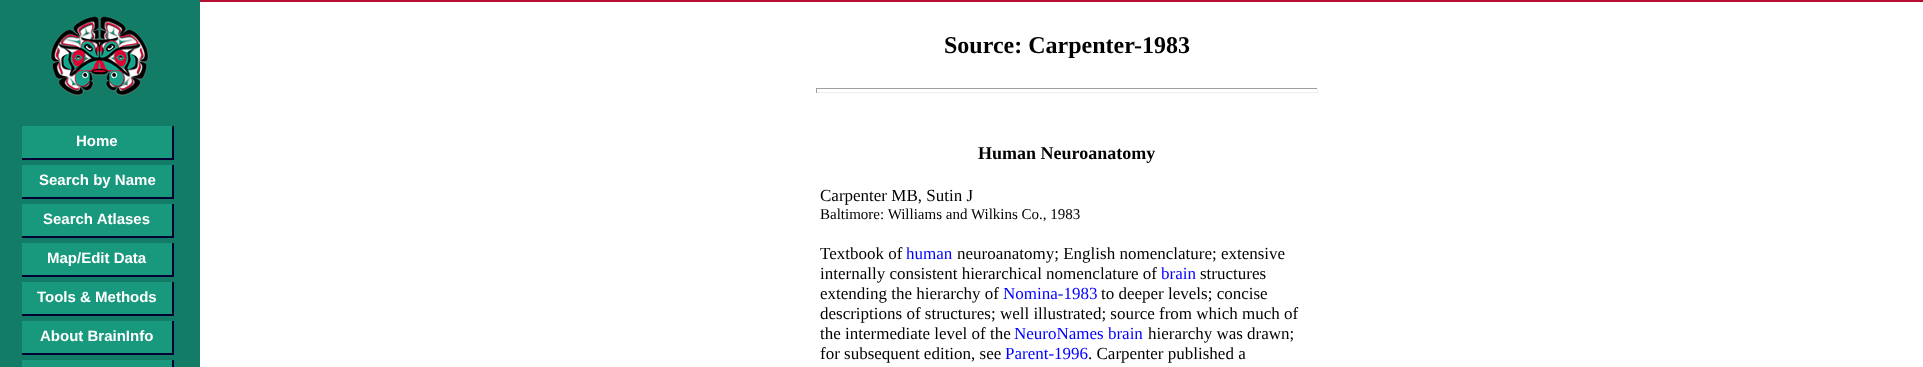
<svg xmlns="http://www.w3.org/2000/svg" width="1923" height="367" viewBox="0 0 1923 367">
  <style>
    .t1 { font: bold 15px Liberation Sans; fill: #fff; }
    .t2 { font: bold 24px Liberation Serif; fill: #000; }
    .t3 { font: bold 18px Liberation Serif; fill: #000; }
    .t4 { font: 17px Liberation Serif; fill: #000; }
    .t5 { font: 15px Liberation Serif; fill: #000; }
    .t6 { font: 17px Liberation Serif; fill: #00f; }
  </style>
  <rect width="100%" height="100%" fill="#fff"/>
  <rect x="200" y="0" width="1723" height="2" fill="#b51032"/>
  <rect x="0" y="0" width="200" height="367" fill="#127c66"/>
  <image x="50" y="16" width="99" height="80" href="images/1.png"/>
  <rect x="22" y="126" width="150" height="32" fill="#18987d"/>
  <rect x="172" y="126" width="2" height="34" fill="#003"/>
  <rect x="22" y="158" width="152" height="2" fill="#003"/>
  <text x="76" y="146" class="t1">Home</text>
  <rect x="22" y="165" width="150" height="32" fill="#18987d"/>
  <rect x="172" y="165" width="2" height="34" fill="#003"/>
  <rect x="22" y="197" width="152" height="2" fill="#003"/>
  <text x="39" y="185" class="t1">Search by Name</text>
  <rect x="22" y="204" width="150" height="32" fill="#18987d"/>
  <rect x="172" y="204" width="2" height="34" fill="#003"/>
  <rect x="22" y="236" width="152" height="2" fill="#003"/>
  <text x="43" y="224" class="t1">Search Atlases</text>
  <rect x="22" y="243" width="150" height="32" fill="#18987d"/>
  <rect x="172" y="243" width="2" height="34" fill="#003"/>
  <rect x="22" y="275" width="152" height="2" fill="#003"/>
  <text x="47" y="263" class="t1">Map/Edit Data</text>
  <rect x="22" y="282" width="150" height="32" fill="#18987d"/>
  <rect x="172" y="282" width="2" height="34" fill="#003"/>
  <rect x="22" y="314" width="152" height="2" fill="#003"/>
  <text x="37" y="302" class="t1">Tools &amp; Methods</text>
  <rect x="22" y="321" width="150" height="32" fill="#18987d"/>
  <rect x="172" y="321" width="2" height="34" fill="#003"/>
  <rect x="22" y="353" width="152" height="2" fill="#003"/>
  <text x="40" y="341" class="t1">About BrainInfo</text>
  <rect x="22" y="360" width="152" height="7" fill="#18987d"/>
  <rect x="172" y="360" width="2" height="7" fill="#003"/>
  <text x="944" y="53" class="t2">Source: Carpenter-1983</text>
  <rect x="816" y="88" width="502" height="1" fill="#9f9f9f"/>
  <rect x="1317" y="88" width="1" height="5" fill="#eee"/>
  <rect x="816" y="92" width="502" height="1" fill="#eee"/>
  <rect x="816" y="88" width="1" height="5" fill="#9f9f9f"/>
  <text x="978" y="159" class="t3">Human Neuroanatomy</text>
  <text x="820" y="201" class="t4">Carpenter MB, Sutin J</text>
  <text x="820" y="219" class="t5">Baltimore: Williams and Wilkins Co., 1983</text>
  <text x="820" y="259" class="t4">Textbook of</text>
  <text x="906" y="259" class="t6">human</text>
  <text x="957" y="259" class="t4">neuroanatomy; English nomenclature; extensive</text>
  <text x="820" y="279" class="t4">internally consistent hierarchical nomenclature of</text>
  <text x="1161" y="279" class="t6">brain</text>
  <text x="1200" y="279" class="t4">structures</text>
  <text x="820" y="299" class="t4">extending the hierarchy of</text>
  <text x="1003" y="299" class="t6">Nomina-1983</text>
  <text x="1101" y="299" class="t4">to deeper levels; concise</text>
  <text x="820" y="319" class="t4">descriptions of structures; well illustrated; source from which much of</text>
  <text x="820" y="339" class="t4">the intermediate level of the</text>
  <text x="1014" y="339" class="t6">NeuroNames brain</text>
  <text x="1148" y="339" class="t4">hierarchy was drawn;</text>
  <text x="820" y="359" class="t4">for subsequent edition, see</text>
  <text x="1005" y="359" class="t6">Parent-1996</text>
  <text x="1088" y="359" class="t4">. Carpenter published a</text>
</svg>
